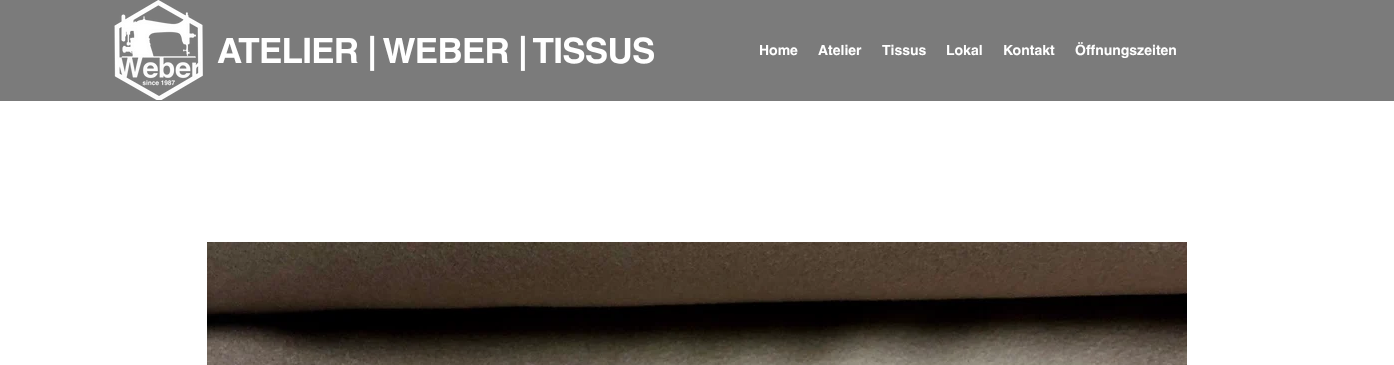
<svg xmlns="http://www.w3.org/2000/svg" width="1394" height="365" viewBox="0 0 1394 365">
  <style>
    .t1 { font: bold 35px helvetica; letter-spacing: -0.75px; fill: #fff; }
    .t2 { font: bold 14px helvetica; fill: #fff; }
  </style>
  <rect width="100%" height="100%" fill="#fff"/>
  <rect x="0" y="0" width="1394" height="101" fill="#7b7b7b"/>
  <image x="114" y="0" width="89" height="100" href="images/1.png"/>
  <text x="217" y="63" class="t1">ATELIER | WEBER | TISSUS</text>
  <text x="759" y="55" class="t2">Home</text>
  <text x="818" y="55" class="t2">Atelier</text>
  <text x="882" y="55" class="t2">Tissus</text>
  <text x="946" y="55" class="t2">Lokal</text>
  <text x="1003" y="55" class="t2">Kontakt</text>
  <text x="1075" y="55" class="t2">Öffnungszeiten</text>
  <image x="207" y="242" width="980" height="123" href="images/2.png"/>
</svg>
